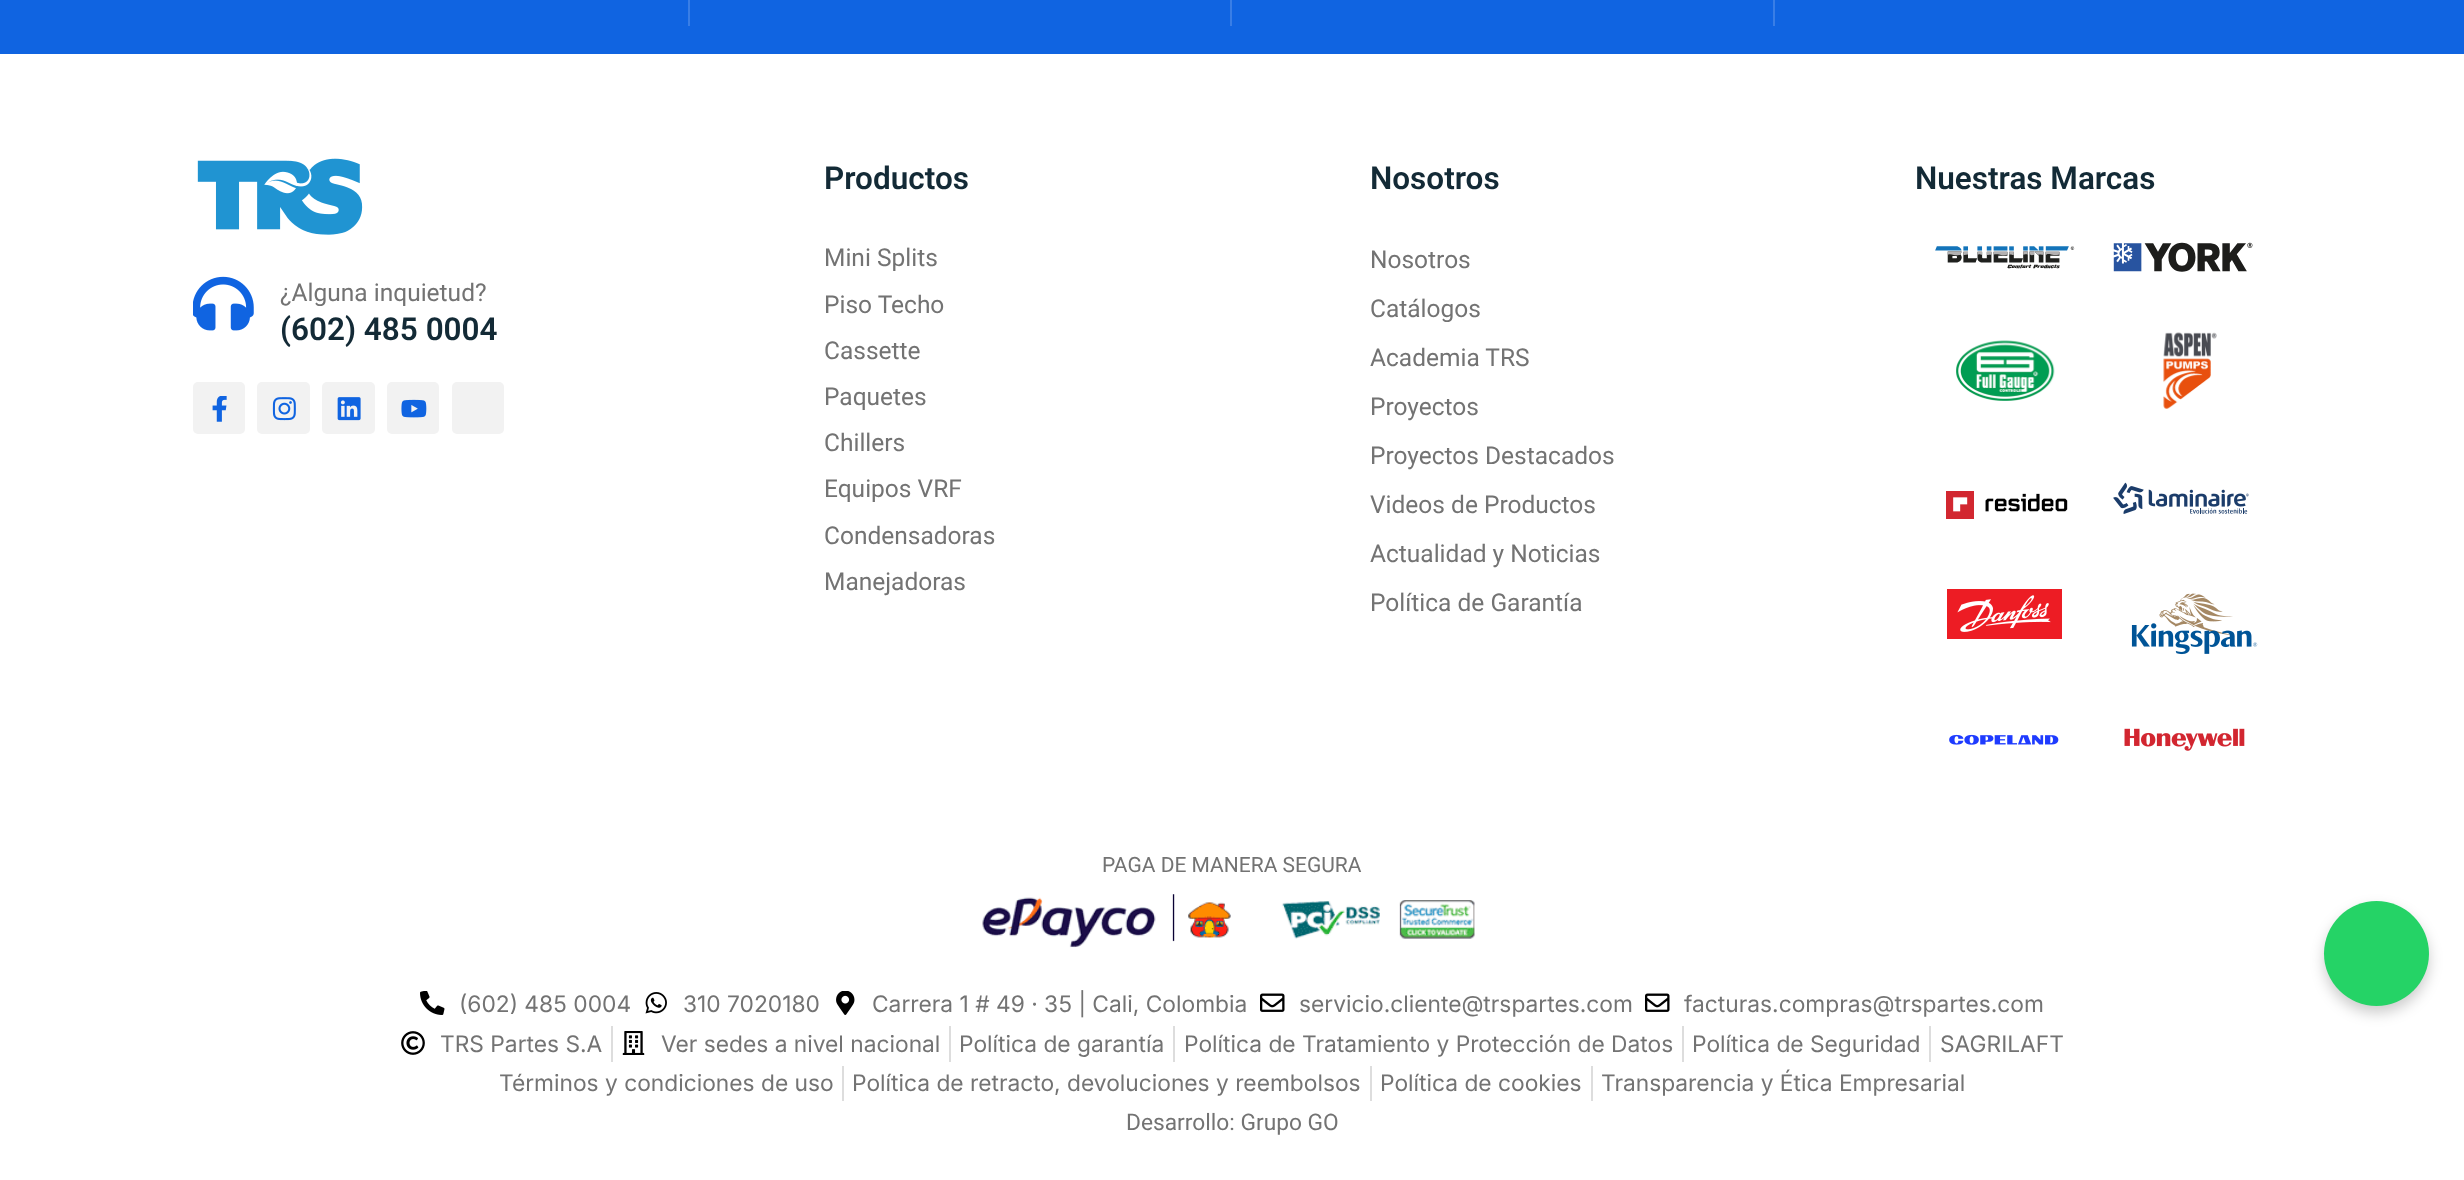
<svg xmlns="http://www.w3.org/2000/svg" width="2464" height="1180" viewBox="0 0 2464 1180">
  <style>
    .t1 { font: 600 31.5px Roboto; fill: #132a36; }
    .t2 { font: 24.5px Roboto; fill: #737373; }
    .t3 { font: 21px Roboto; fill: #737373; }
    .t4 { font: 22.75px Inter; fill: #737373; }
    .t5 { font: 22.75px Roboto; fill: #737373; }
  </style>
  <rect width="100%" height="100%" fill="#1064e1"/>
  <rect x="688" y="0" width="2" height="26" fill="#397ee6"/>
  <rect x="1230" y="0" width="2" height="26" fill="#397ee6"/>
  <rect x="1773" y="0" width="2" height="26" fill="#397ee6"/>
  <rect x="0" y="54" width="2464" height="1126" fill="#fff"/>
  <text x="824" y="189" class="t1">Productos</text>
  <text x="824" y="266" class="t2">Mini Splits</text>
  <text x="824" y="313" class="t2">Piso Techo</text>
  <text x="824" y="359" class="t2">Cassette</text>
  <text x="824" y="405" class="t2">Paquetes</text>
  <text x="824" y="451" class="t2">Chillers</text>
  <text x="824" y="497" class="t2">Equipos VRF</text>
  <text x="824" y="544" class="t2">Condensadoras</text>
  <text x="824" y="590" class="t2">Manejadoras</text>
  <text x="1370" y="189" class="t1">Nosotros</text>
  <text x="1370" y="268" class="t2">Nosotros</text>
  <text x="1370" y="317" class="t2">Catálogos</text>
  <text x="1370" y="366" class="t2">Academia TRS</text>
  <text x="1370" y="415" class="t2">Proyectos</text>
  <text x="1370" y="464" class="t2">Proyectos Destacados</text>
  <text x="1370" y="513" class="t2">Videos de Productos</text>
  <text x="1370" y="562" class="t2">Actualidad y Noticias</text>
  <text x="1370" y="611" class="t2">Política de Garantía</text>
  <text x="1915" y="189" class="t1">Nuestras Marcas</text>
  <image x="1935" y="246" width="140" height="23" href="images/1.png"/>
  <image x="2113" y="242" width="140" height="30" href="images/2.png"/>
  <image x="1956" y="340" width="99" height="61" href="images/3.png"/>
  <image x="2163" y="332" width="54" height="77" href="images/4.png"/>
  <image x="1946" y="491" width="122" height="28" href="images/5.png"/>
  <image x="2113" y="482" width="136" height="32" href="images/6.png"/>
  <image x="1947" y="589" width="115" height="50" href="images/7.png"/>
  <image x="2131" y="593" width="127" height="62" href="images/8.png"/>
  <image x="1949" y="734" width="110" height="11" href="images/9.png"/>
  <image x="2124" y="728" width="121" height="23" href="images/10.png"/>
  <image x="197" y="158" width="166" height="77" href="images/11.png"/>
  <image x="193" y="276" width="61" height="55" href="images/12.png"/>
  <text x="280" y="301" class="t2">¿Alguna inquietud?</text>
  <text x="280" y="340" class="t1">(602) 485 0004</text>
  <rect x="193" y="382" width="52" height="52" rx="5" fill="#f2f2f2"/>
  <image x="212" y="396" width="15" height="26" href="images/13.png"/>
  <rect x="257" y="382" width="53" height="52" rx="5" fill="#f2f2f2"/>
  <image x="272" y="397" width="24" height="24" href="images/14.png"/>
  <rect x="322" y="382" width="53" height="52" rx="5" fill="#f2f2f2"/>
  <image x="337" y="397" width="24" height="24" href="images/15.png"/>
  <rect x="387" y="382" width="52" height="52" rx="5" fill="#f2f2f2"/>
  <image x="401" y="399" width="26" height="19" href="images/16.png"/>
  <rect x="452" y="382" width="52" height="52" rx="5" fill="#f2f2f2"/>
  <text x="1102" y="872" class="t3">PAGA DE MANERA SEGURA</text>
  <image x="982" y="894" width="493" height="54" href="images/17.png"/>
  <image x="420" y="991" width="25" height="24" href="images/18.png"/>
  <text x="459" y="1012" class="t4">(602) 485 0004</text>
  <image x="645" y="992" width="22" height="22" href="images/19.png"/>
  <text x="683" y="1012" class="t4">310 7020180</text>
  <image x="836" y="991" width="19" height="24" href="images/20.png"/>
  <text x="872" y="1012" class="t4">Carrera 1 # 49 · 35 | Cali, Colombia</text>
  <image x="1260" y="993" width="25" height="19" href="images/21.png"/>
  <text x="1299" y="1012" class="t4">servicio.cliente@trspartes.com</text>
  <image x="1645" y="993" width="25" height="19" href="images/21.png"/>
  <text x="1684" y="1012" class="t4">facturas.compras@trspartes.com</text>
  <image x="401" y="1031" width="24" height="24" href="images/22.png"/>
  <text x="440" y="1052" class="t4">TRS Partes S.A</text>
  <rect x="611" y="1026" width="2" height="36" fill="#ddd"/>
  <image x="622" y="1031" width="23" height="24" href="images/23.png"/>
  <text x="661" y="1052" class="t4">Ver sedes a nivel nacional</text>
  <rect x="949" y="1026" width="2" height="36" fill="#ddd"/>
  <text x="959" y="1052" class="t4">Política de garantía</text>
  <rect x="1173" y="1026" width="2" height="36" fill="#ddd"/>
  <text x="1184" y="1052" class="t4">Política de Tratamiento y Protección de Datos</text>
  <rect x="1682" y="1026" width="2" height="36" fill="#ddd"/>
  <text x="1692" y="1052" class="t4">Política de Seguridad</text>
  <rect x="1929" y="1026" width="2" height="36" fill="#ddd"/>
  <text x="1940" y="1052" class="t4">SAGRILAFT</text>
  <text x="499" y="1091" class="t4">Términos y condiciones de uso</text>
  <rect x="842" y="1066" width="2" height="35" fill="#ddd"/>
  <text x="852" y="1091" class="t4">Política de retracto, devoluciones y reembolsos</text>
  <rect x="1370" y="1066" width="2" height="35" fill="#ddd"/>
  <text x="1380" y="1091" class="t4">Política de cookies</text>
  <rect x="1591" y="1066" width="2" height="35" fill="#ddd"/>
  <text x="1601" y="1091" class="t4">Transparencia y Ética Empresarial</text>
  <text x="1126" y="1130" class="t5">Desarrollo: Grupo GO</text>
  <rect x="2324" y="908" width="105" height="105" rx="52.5" fill="#00000033" filter="blur(7px)"/>
  <circle cx="2376.5" cy="953.5" r="52.5" fill="#25d366"/>
</svg>
